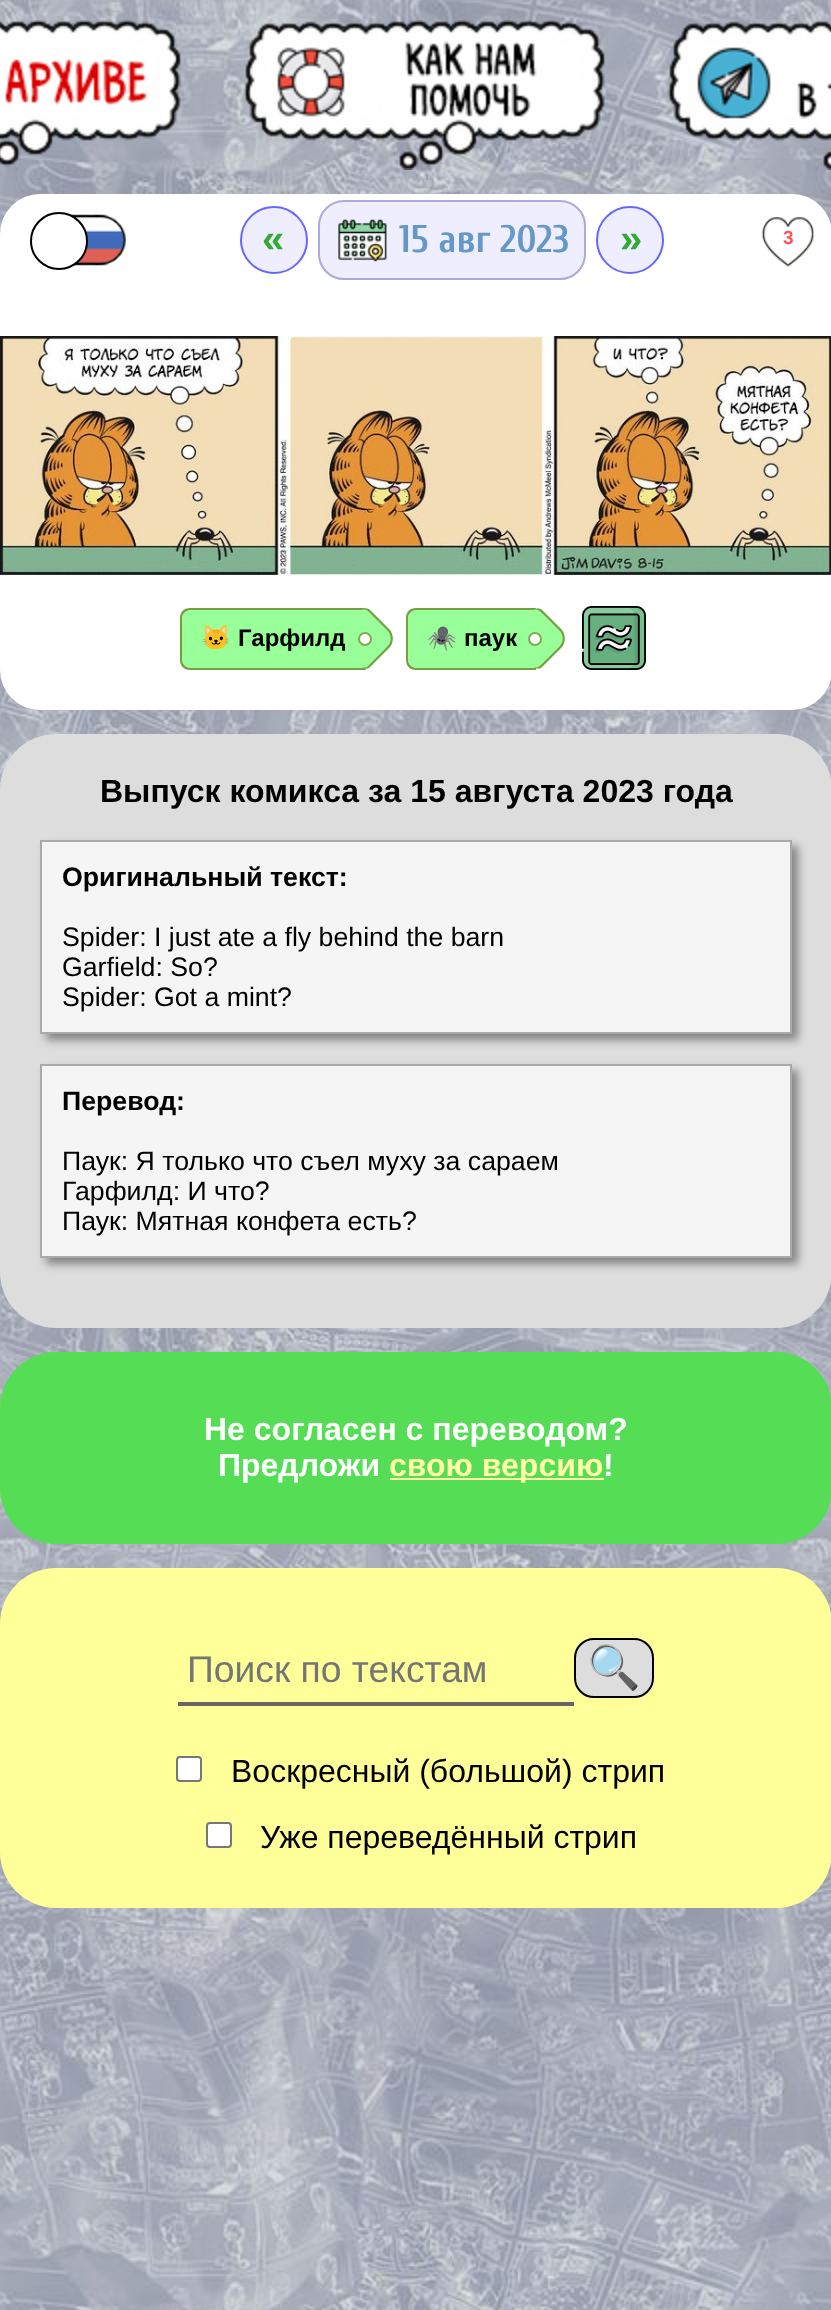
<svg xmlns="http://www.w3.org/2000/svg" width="831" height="2310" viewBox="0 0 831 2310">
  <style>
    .t1 { font: bold 40px Liberation Sans; fill: #3a3; }
    .t2 { font: bold 38.5px Cuprum; fill: #6597c8; }
    .t3 { font: bold 19px Liberation Sans; fill: #f55; }
    .t4 { font: bold 24px Noto Color Emoji; fill: #000; }
    .t5 { font: bold 24px Liberation Sans; fill: #000; }
    .t6 { font: bold 32px Liberation Sans; fill: #000; }
    .t7 { font: bold 26.7px Liberation Sans; fill: #000; }
    .t8 { font: 26.7px Liberation Sans; fill: #000; }
    .t9 { font: bold 32px Liberation Sans; fill: #fff; }
    .t10 { font: bold 32px Liberation Sans; fill: #ffa; }
    .t11 { font: 37.25px Liberation Sans; fill: #757575; }
    .t12 { font: 43px Noto Color Emoji; fill: #000; }
    .t13 { font: 32px Liberation Sans; fill: #000; }
  </style>
  <rect width="100%" height="100%" fill="#fff"/>
  <image x="0" y="0" width="831" height="2310" href="images/1.png"/>
  <image x="0" y="20" width="181" height="147" href="images/2.png"/>
  <image x="243" y="20" width="362" height="150" href="images/3.png"/>
  <image x="667" y="21" width="164" height="149" href="images/4.png"/>
  <rect x="0" y="194" width="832" height="516" rx="40" fill="#fff"/>
  <image x="69" y="214" width="57" height="52" href="images/5.png"/>
  <circle cx="59" cy="241" r="28" fill="#fff" stroke="#000" stroke-width="2"/>
  <circle cx="274" cy="240" r="33" fill="#eef" stroke="#66f" stroke-width="2"/>
  <text x="262" y="252" class="t1">«</text>
  <rect x="318" y="200" width="268" height="80" rx="26" fill="#eef"/>
  <image x="338" y="219" width="49" height="43" href="images/6.png"/>
  <rect x="319" y="201" width="266" height="78" rx="25" fill="none" stroke="#aad" stroke-width="2"/>
  <text x="399" y="252" class="t2">15 авг 2023</text>
  <circle cx="630" cy="240" r="33" fill="#eef" stroke="#66f" stroke-width="2"/>
  <text x="620" y="252" class="t1">»</text>
  <image x="761" y="216" width="54" height="51" href="images/7.png"/>
  <text x="783" y="244" class="t3">3</text>
  <image x="0" y="336" width="831" height="240" href="images/8.png"/>
  <path d="M190 610H366V668H190C185.5 668 182 664.5 182 660V618C182 613.5 185.5 610 190 610Z" fill="#9f9"/>
  <path d="M190 608H366V670H190C184 670 180 666 180 660V618C180 612 184 608 190 608ZM190 610H366V668H190C186 668 182 664 182 660V618C182 614 186 610 190 610Z" fill="#769e42" fill-rule="evenodd"/>
  <text x="201" y="646" class="t4">🐱</text>
  <path d="M370 610L389 629C394 634 394 643 389 648L370 667C368 669 364 669 362 667L334 639L362 610C364 608 368 608 370 610Z" fill="#9f9"/>
  <text x="238" y="646" class="t5">Гарфилд</text>
  <path d="M370 610L389 629C394 634 394 643 389 648L370 667C368 669 364 669 362 667L334 639L362 610C364 608 368 608 370 610ZM369 612L387 630C392 635 392 642 387 647L369 665C367 668 363 668 362 667L334 639L362 610C363 609 367 609 369 612Z" fill="#769e42" fill-rule="evenodd"/>
  <circle cx="365" cy="639" r="6" fill="#fff" stroke="#83ab52" stroke-width="2"/>
  <path d="M416 610H536V668H416C411.5 668 408 664.5 408 660V618C408 613.5 411.5 610 416 610Z" fill="#9f9"/>
  <path d="M416 608H536V670H416C410 670 406 666 406 660V618C406 612 410 608 416 608ZM416 610H536V668H416C412 668 408 664 408 660V618C408 614 412 610 416 610Z" fill="#769e42" fill-rule="evenodd"/>
  <text x="427" y="646" class="t4">🕷️</text>
  <path d="M542 610L561 629C566 634 566 643 561 648L542 667C540 669 536 669 534 667L505 639L534 610C536 608 540 608 542 610Z" fill="#9f9"/>
  <path d="M542 610L561 629C566 634 566 643 561 648L542 667C540 669 536 669 534 667L505 639L534 610C536 608 540 608 542 610ZM541 612L559 630C564 635 564 642 559 647L541 665C538 668 535 668 534 667L505 639L534 610C535 609 538 609 541 612Z" fill="#769e42" fill-rule="evenodd"/>
  <text x="464" y="646" class="t5">паук</text>
  <circle cx="535" cy="639" r="6" fill="#fff" stroke="#83ab52" stroke-width="2"/>
  <image x="582" y="606" width="64" height="64" href="images/9.png"/>
  <rect x="0" y="734" width="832" height="594" rx="56" fill="#ddd"/>
  <text x="100" y="802" class="t6">Выпуск комикса за 15 августа 2023 года</text>
  <rect x="46" y="846" width="752" height="194" fill="#00000066" filter="blur(4px)"/>
  <rect x="41" y="841" width="750" height="192" fill="#f5f5f5" stroke="#aaa" stroke-width="2"/>
  <text x="62" y="886" class="t7">Оригинальный текст:</text>
  <text x="62" y="946" class="t8">Spider: I just ate a fly behind the barn</text>
  <text x="62" y="976" class="t8">Garfield: So?</text>
  <text x="62" y="1006" class="t8">Spider: Got a mint?</text>
  <rect x="46" y="1070" width="752" height="194" fill="#00000066" filter="blur(4px)"/>
  <rect x="41" y="1065" width="750" height="192" fill="#f5f5f5" stroke="#aaa" stroke-width="2"/>
  <text x="62" y="1110" class="t7">Перевод:</text>
  <text x="62" y="1170" class="t8">Паук: Я только что съел муху за сараем</text>
  <text x="62" y="1200" class="t8">Гарфилд: И что?</text>
  <text x="62" y="1230" class="t8">Паук: Мятная конфета есть?</text>
  <rect x="0" y="1352" width="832" height="192" rx="56" fill="#5d5"/>
  <text x="204" y="1440" class="t9">Не согласен с переводом?</text>
  <text x="218" y="1476" class="t9">Предложи</text>
  <rect x="390" y="1478" width="214" height="2" fill="#ffa"/>
  <text x="389" y="1476" class="t10">свою версию</text>
  <text x="603" y="1476" class="t9">!</text>
  <rect x="0" y="1568" width="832" height="340" rx="56" fill="#ff9"/>
  <rect x="178" y="1702" width="396" height="4" fill="#666"/>
  <text x="187" y="1682" class="t11">Поиск по текстам</text>
  <rect x="575" y="1639" width="78" height="58" rx="19" fill="#ddd" stroke="#000" stroke-width="2"/>
  <text x="587" y="1682" class="t12">🔍</text>
  <rect x="177" y="1757" width="24" height="24" rx="3" fill="#fff" stroke="#767676" stroke-width="2"/>
  <text x="231" y="1782" class="t13">Воскресный (большой) стрип</text>
  <rect x="207" y="1823" width="24" height="24" rx="3" fill="#fff" stroke="#767676" stroke-width="2"/>
  <text x="260" y="1848" class="t13">Уже переведённый стрип</text>
</svg>
